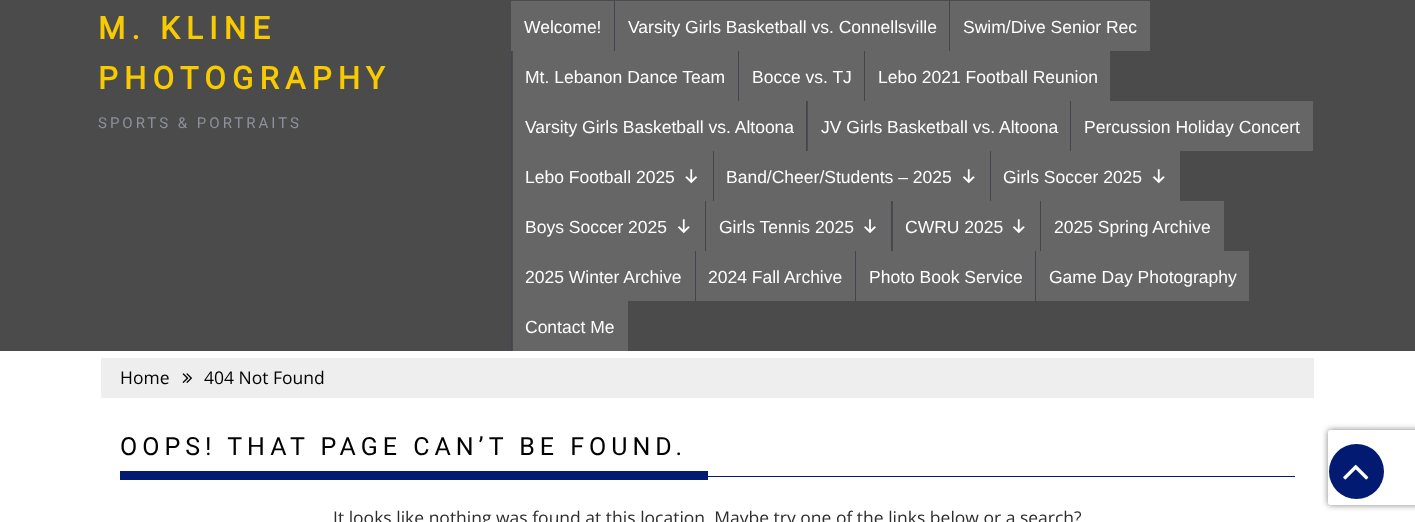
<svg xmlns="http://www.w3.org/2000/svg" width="1415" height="522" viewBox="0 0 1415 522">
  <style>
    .t1 { font: bold 31.25px Roboto; letter-spacing: 6.25px; fill: #f7ca02; }
    .t2 { font: 15px Roboto; letter-spacing: 3px; fill: #8c919b; }
    .t3 { font: 17.5px Liberation Sans; fill: #fff; }
    .t4 { font: 17.5px Open Sans; fill: #000; }
    .t5 { font: 25px Roboto; letter-spacing: 5px; fill: #000; }
    .t6 { font: 17.5px Open Sans; fill: #2d2d2d; }
  </style>
  <defs>
    <clipPath id="clip1"><path d="M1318 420H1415V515H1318ZM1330.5 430H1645.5C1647 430 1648 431 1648 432.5V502.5C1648 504 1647 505 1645.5 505H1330.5C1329 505 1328 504 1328 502.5V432.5C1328 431 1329 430 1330.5 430Z" clip-rule="evenodd"/></clipPath>
  </defs>
  <rect width="100%" height="100%" fill="#fff"/>
  <rect x="0" y="0" width="1415" height="351" fill="#4b4b4b"/>
  <text x="98" y="39" class="t1">M. KLINE</text>
  <text x="98" y="89" class="t1">PHOTOGRAPHY</text>
  <text x="98" y="128" class="t2">SPORTS &amp; PORTRAITS</text>
  <rect x="511" y="1" width="103" height="50" fill="#666"/>
  <text x="524" y="33" class="t3">Welcome!</text>
  <rect x="614" y="1" width="1" height="50" fill="#44454f"/>
  <rect x="615" y="1" width="334" height="50" fill="#666"/>
  <text x="628" y="33" class="t3">Varsity Girls Basketball vs. Connellsville</text>
  <rect x="949" y="1" width="1" height="50" fill="#44454f"/>
  <rect x="950" y="1" width="200" height="50" fill="#666"/>
  <text x="963" y="33" class="t3">Swim/Dive Senior Rec</text>
  <rect x="511" y="51" width="1" height="300" fill="#44454f"/>
  <rect x="513" y="51" width="225" height="50" fill="#666"/>
  <text x="525" y="83" class="t3">Mt. Lebanon Dance Team</text>
  <rect x="738" y="51" width="1" height="50" fill="#44454f"/>
  <rect x="739" y="51" width="125" height="50" fill="#666"/>
  <text x="752" y="83" class="t3">Bocce vs. TJ</text>
  <rect x="864" y="51" width="1" height="50" fill="#44454f"/>
  <rect x="865" y="51" width="245" height="50" fill="#666"/>
  <text x="878" y="83" class="t3">Lebo 2021 Football Reunion</text>
  <rect x="513" y="101" width="293" height="50" fill="#666"/>
  <text x="525" y="133" class="t3">Varsity Girls Basketball vs. Altoona</text>
  <rect x="806" y="101" width="1" height="50" fill="#44454f"/>
  <rect x="808" y="101" width="262" height="50" fill="#666"/>
  <text x="821" y="133" class="t3">JV Girls Basketball vs. Altoona</text>
  <rect x="1070" y="101" width="1" height="50" fill="#44454f"/>
  <rect x="1071" y="101" width="242" height="50" fill="#666"/>
  <text x="1084" y="133" class="t3">Percussion Holiday Concert</text>
  <rect x="513" y="151" width="200" height="50" fill="#666"/>
  <text x="525" y="183" class="t3">Lebo Football 2025</text>
  <image x="685" y="169" width="13" height="15" href="images/1.png"/>
  <rect x="713" y="151" width="1" height="50" fill="#44454f"/>
  <rect x="714" y="151" width="276" height="50" fill="#666"/>
  <text x="726" y="183" class="t3">Band/Cheer/Students – 2025</text>
  <image x="962" y="169" width="13" height="15" href="images/2.png"/>
  <rect x="990" y="151" width="1" height="50" fill="#44454f"/>
  <rect x="991" y="151" width="189" height="50" fill="#666"/>
  <text x="1003" y="183" class="t3">Girls Soccer 2025</text>
  <image x="1152" y="169" width="13" height="15" href="images/2.png"/>
  <rect x="513" y="201" width="192" height="50" fill="#666"/>
  <text x="525" y="233" class="t3">Boys Soccer 2025</text>
  <image x="677" y="219" width="13" height="15" href="images/2.png"/>
  <rect x="705" y="201" width="1" height="50" fill="#44454f"/>
  <rect x="706" y="201" width="185" height="50" fill="#666"/>
  <text x="719" y="233" class="t3">Girls Tennis 2025</text>
  <image x="864" y="219" width="12" height="15" href="images/3.png"/>
  <rect x="891" y="201" width="1" height="50" fill="#44454f"/>
  <rect x="893" y="201" width="147" height="50" fill="#666"/>
  <text x="905" y="233" class="t3">CWRU 2025</text>
  <image x="1012" y="219" width="13" height="15" href="images/2.png"/>
  <rect x="1040" y="201" width="1" height="50" fill="#44454f"/>
  <rect x="1041" y="201" width="183" height="50" fill="#666"/>
  <text x="1054" y="233" class="t3">2025 Spring Archive</text>
  <rect x="513" y="251" width="182" height="50" fill="#666"/>
  <text x="525" y="283" class="t3">2025 Winter Archive</text>
  <rect x="695" y="251" width="1" height="50" fill="#44454f"/>
  <rect x="696" y="251" width="159" height="50" fill="#666"/>
  <text x="708" y="283" class="t3">2024 Fall Archive</text>
  <rect x="855" y="251" width="1" height="50" fill="#44454f"/>
  <rect x="856" y="251" width="179" height="50" fill="#666"/>
  <text x="869" y="283" class="t3">Photo Book Service</text>
  <rect x="1035" y="251" width="1" height="50" fill="#44454f"/>
  <rect x="1036" y="251" width="213" height="50" fill="#666"/>
  <text x="1049" y="283" class="t3">Game Day Photography</text>
  <rect x="513" y="301" width="115" height="50" fill="#666"/>
  <text x="525" y="333" class="t3">Contact Me</text>
  <rect x="101" y="358" width="1213" height="40" fill="#eeeeef"/>
  <text x="120" y="384" class="t4">Home</text>
  <image x="182" y="373" width="10" height="10" href="images/4.png"/>
  <text x="204" y="384" class="t4">404 Not Found</text>
  <rect x="708" y="476" width="587" height="1" fill="#021a72"/>
  <text x="120" y="455" class="t5">OOPS! THAT PAGE CAN’T BE FOUND.</text>
  <rect x="120" y="471" width="588" height="9" fill="#021a72"/>
  <text x="333" y="524" class="t6">It looks like nothing was found at this location. Maybe try one of the links below or a search?</text>
  <g clip-path="url(#clip1)">
    <rect x="1328" y="430" width="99" height="75" rx="2.5" fill="#808080" filter="blur(3px)"/>
  </g>
  <circle cx="1356.5" cy="471.5" r="27.5" fill="#021a72"/>
  <image x="1343" y="464" width="26" height="16" href="images/5.png"/>
</svg>
